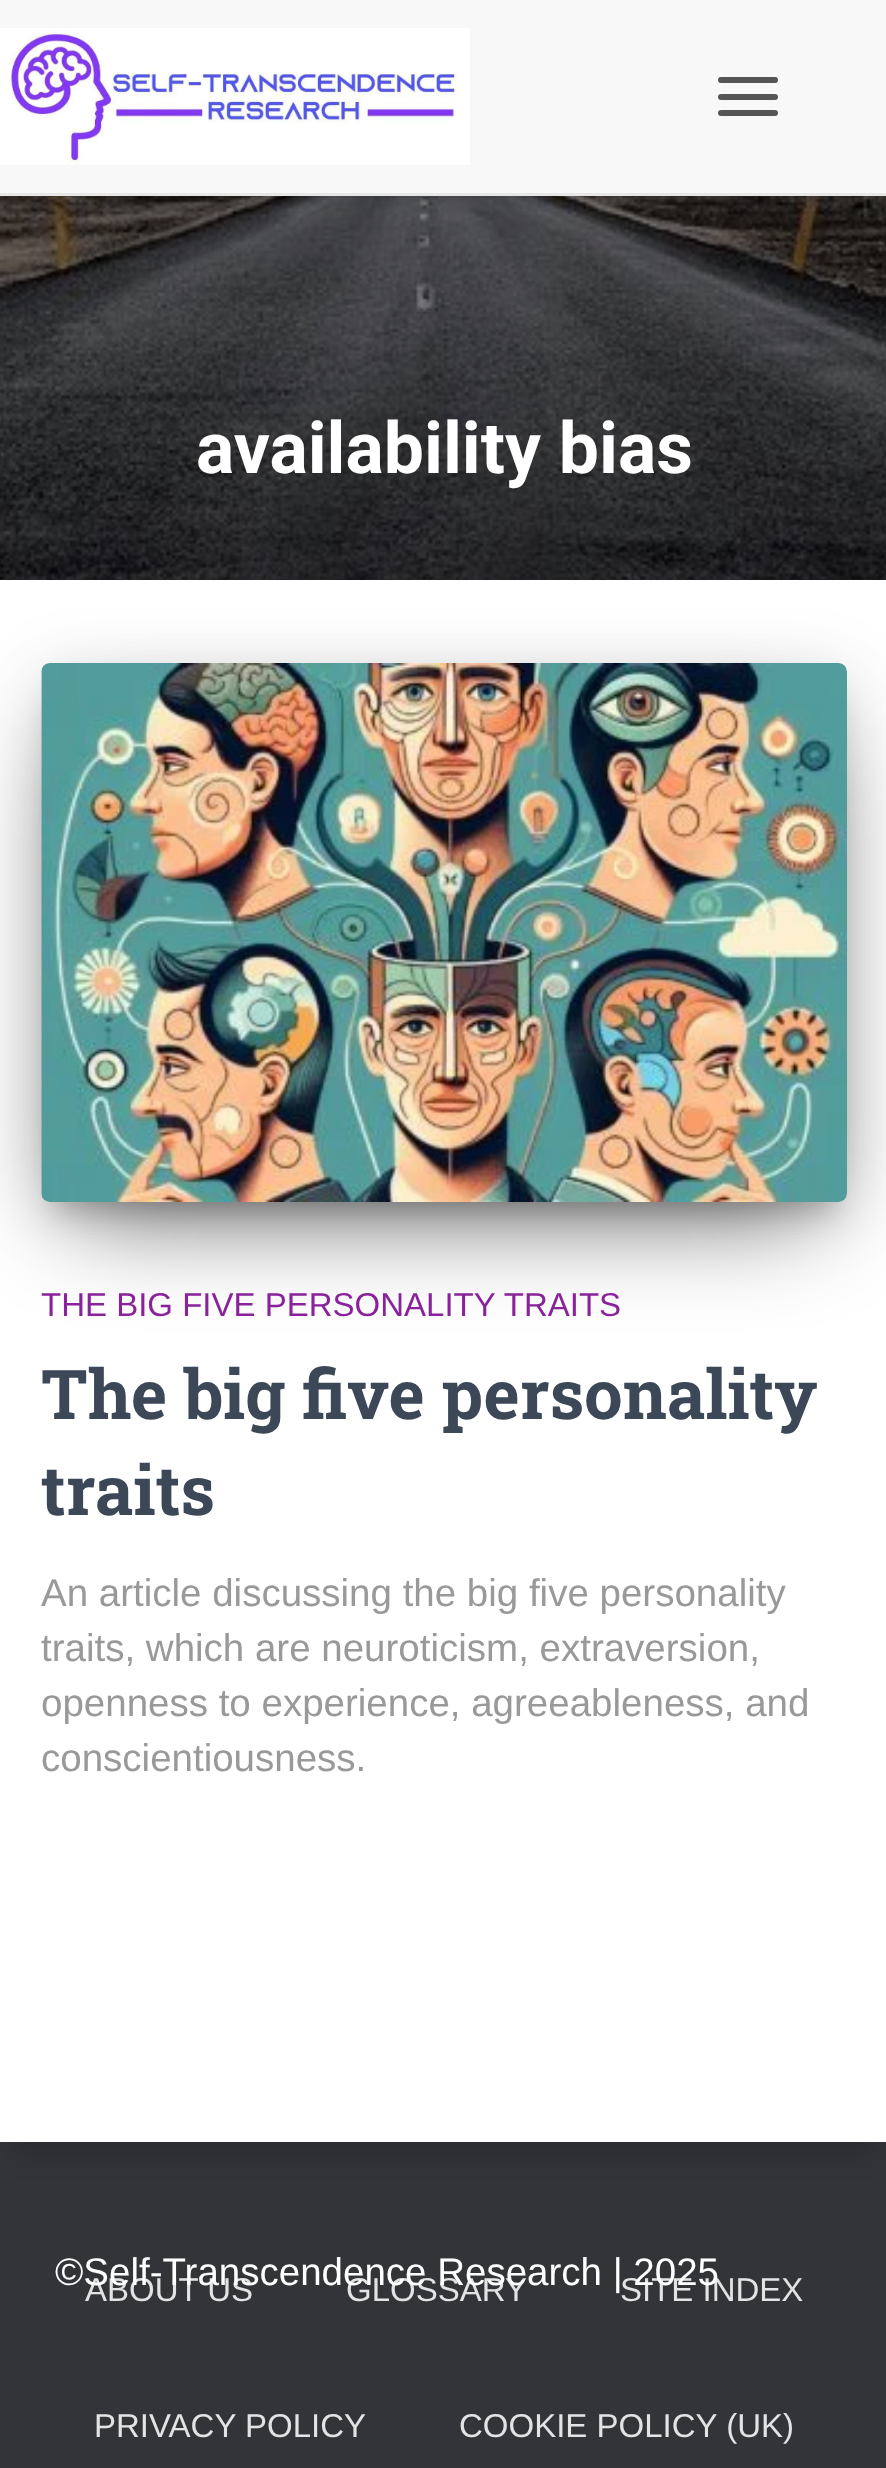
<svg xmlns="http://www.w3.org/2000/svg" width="886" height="2468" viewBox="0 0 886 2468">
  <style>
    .t1 { font: bold 71.5px Roboto; fill: #fff; }
    .t2 { font: 33px Liberation Sans; fill: #89229b; }
    .t3 { font: bold 68.75px Roboto Slab; fill: #3c4858; }
    .t4 { font: 38.5px Liberation Sans; fill: #999; }
    .t5 { font: 33px Liberation Sans; fill: #e2e3e3; }
    .t6 { font: 38.5px Liberation Sans; fill: #fff; }
  </style>
  <rect width="100%" height="100%" fill="#323437"/>
  <image x="0" y="196" width="886" height="384" href="images/2.png"/>
  <rect x="17" y="19" width="855" height="163" fill="#0000006b" filter="blur(14px)"/>
  <rect x="0" y="0" width="886" height="193" fill="#f8f8f8"/>
  <rect x="0" y="193" width="886" height="3" fill="#e7e7e7"/>
  <image x="0" y="28" width="470" height="137" href="images/1.png"/>
  <rect x="718" y="77" width="60" height="6" rx="3" fill="#555"/>
  <rect x="718" y="94" width="60" height="6" rx="3" fill="#555"/>
  <rect x="718" y="110" width="60" height="6" rx="3" fill="#555"/>
  <text x="196" y="473" class="t1">availability bias</text>
  <rect x="14" y="616" width="861" height="1535" fill="#00000033" filter="blur(14px)"/>
  <rect x="0" y="580" width="886" height="1562" fill="#fff"/>
  <rect x="55" y="699" width="778" height="511" fill="#00000033" filter="blur(14px)"/>
  <rect x="41" y="674" width="806" height="539" rx="8" fill="#0000001f" filter="blur(34.5px)"/>
  <rect x="74" y="740" width="740" height="473" fill="#0000008f" filter="blur(52px)"/>
  <image x="41" y="663" width="806" height="539" href="images/3.png"/>
  <text x="41" y="1316" class="t2">THE BIG FIVE PERSONALITY TRAITS</text>
  <text x="41" y="1419" class="t3">The big five personality</text>
  <text x="41" y="1515" class="t3">traits</text>
  <text x="41" y="1606" class="t4">An article discussing the big five personality</text>
  <text x="41" y="1661" class="t4">traits, which are neuroticism, extraversion,</text>
  <text x="41" y="1716" class="t4">openness to experience, agreeableness, and</text>
  <text x="41" y="1771" class="t4">conscientiousness.</text>
  <text x="85" y="2301" class="t5">ABOUT US</text>
  <text x="346" y="2301" class="t5">GLOSSARY</text>
  <text x="620" y="2301" class="t5">SITE INDEX</text>
  <text x="55" y="2285" class="t6">©Self-Transcendence Research | 2025</text>
  <text x="94" y="2437" class="t5">PRIVACY POLICY</text>
  <text x="459" y="2437" class="t5">COOKIE POLICY (UK)</text>
</svg>
